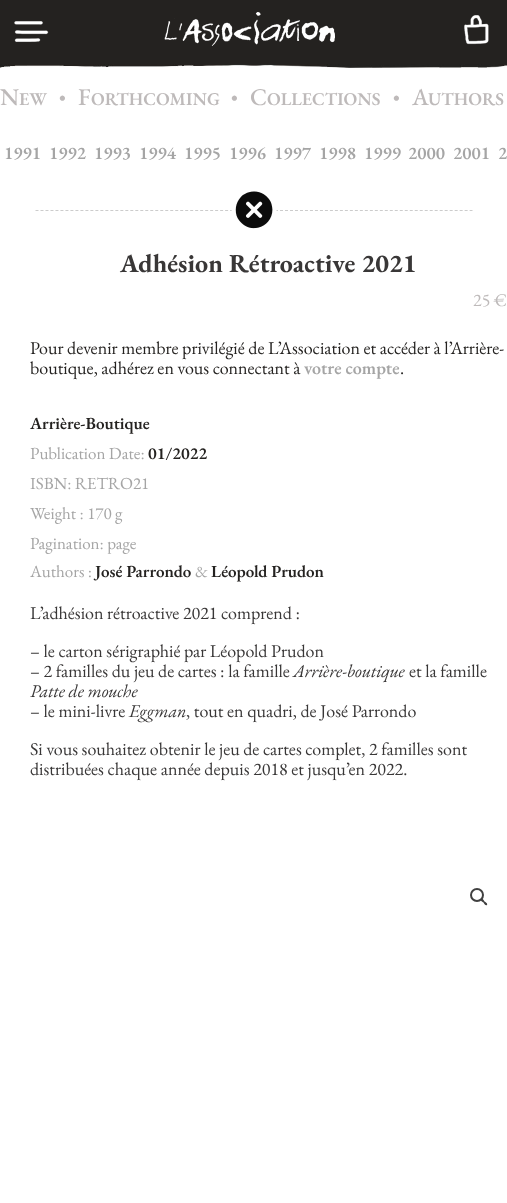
<svg xmlns="http://www.w3.org/2000/svg" width="507" height="1203" viewBox="0 0 507 1203">
  <style>
    .t1 { font: 500 24px EB Garamond; fill: #bebaba; }
    .t2 { font: 600 18px EB Garamond; fill: #bebaba; }
    .t3 { font: 500 19px EB Garamond; fill: #bebaba; }
    .t4 { font: 600 18px EB Garamond; fill: #a5a5a5; }
    .t5 { font: bold 26px EB Garamond; fill: #393737; }
    .t6 { font: 18px EB Garamond; fill: #bebaba; }
    .t7 { font: 18px EB Garamond; fill: #242220; }
    .t8 { font: 600 17px EB Garamond; fill: #242220; }
    .t9 { font: 17px EB Garamond; fill: #a5a5a5; }
    .t10 { font: 18px EB Garamond; fill: #393737; }
    .t11 { font: italic 18px EB Garamond; fill: #393737; }
  </style>
  <rect width="100%" height="100%" fill="#fff"/>
  <rect x="0" y="0" width="507" height="64" fill="#242220"/>
  <image x="14" y="21" width="35" height="21" href="images/1.png"/>
  <image x="164" y="12" width="171" height="34" href="images/2.png"/>
  <image x="464" y="15" width="25" height="30" href="images/3.png"/>
  <image x="0" y="64" width="507" height="4" href="images/4.png"/>
  <text x="0" y="105" class="t1">N</text>
  <text x="19" y="105" class="t2">EW</text>
  <text x="59" y="105" class="t3">•</text>
  <text x="78" y="105" class="t1">F</text>
  <text x="91" y="105" class="t2">ORTHCOMING</text>
  <text x="231" y="105" class="t3">•</text>
  <text x="250" y="105" class="t1">C</text>
  <text x="267" y="105" class="t2">OLLECTIONS</text>
  <text x="393" y="105" class="t3">•</text>
  <text x="428" y="105" class="t2">UTHORS</text>
  <text x="412" y="105" class="t1">A</text>
  <text x="4" y="159" class="t4">1991</text>
  <text x="49" y="159" class="t4">1992</text>
  <text x="94" y="159" class="t4">1993</text>
  <text x="139" y="159" class="t4">1994</text>
  <text x="184" y="159" class="t4">1995</text>
  <text x="229" y="159" class="t4">1996</text>
  <text x="274" y="159" class="t4">1997</text>
  <text x="319" y="159" class="t4">1998</text>
  <text x="364" y="159" class="t4">1999</text>
  <text x="408" y="159" class="t4">2000</text>
  <text x="453" y="159" class="t4">2001</text>
  <text x="498" y="159" class="t4">2</text>
  <path d="M35.5 210.5H472.5" fill="none" stroke="#ccc" stroke-dasharray="3 1.99"/>
  <image x="231" y="191" width="46" height="38" href="images/5.png"/>
  <text x="120" y="272" class="t5">Adhésion Rétroactive 2021</text>
  <text x="473" y="306" class="t6">25 €</text>
  <text x="30" y="354" class="t7">Pour devenir membre privilégié de L’Association et accéder à l’Arrière-</text>
  <text x="30" y="374" class="t7">boutique, adhérez en vous connectant à</text>
  <text x="304" y="374" class="t4">votre compte</text>
  <text x="400" y="374" class="t7">.</text>
  <text x="30" y="429" class="t8">Arrière-Boutique</text>
  <text x="30" y="459" class="t9">Publication Date:</text>
  <text x="148" y="459" class="t8">01/2022</text>
  <text x="30" y="489" class="t9">ISBN: RETRO21</text>
  <text x="30" y="519" class="t9">Weight : 170 g</text>
  <text x="30" y="549" class="t9">Pagination: page</text>
  <text x="30" y="577" class="t9">Authors :</text>
  <text x="95" y="577" class="t8">José Parrondo</text>
  <text x="195" y="577" class="t9">&amp;</text>
  <text x="211" y="577" class="t8">Léopold Prudon</text>
  <text x="30" y="619" class="t10">L’adhésion rétroactive 2021 comprend :</text>
  <text x="30" y="657" class="t10">– le carton sérigraphié par Léopold Prudon</text>
  <text x="30" y="677" class="t10">– 2 familles du jeu de cartes : la famille</text>
  <text x="293" y="677" class="t11">Arrière-boutique</text>
  <text x="409" y="677" class="t10">et la famille</text>
  <text x="30" y="697" class="t11">Patte de mouche</text>
  <text x="30" y="717" class="t10">– le mini-livre</text>
  <text x="129" y="717" class="t11">Eggman</text>
  <text x="186" y="717" class="t10">, tout en quadri, de José Parrondo</text>
  <text x="30" y="755" class="t10">Si vous souhaitez obtenir le jeu de cartes complet, 2 familles sont</text>
  <text x="30" y="775" class="t10">distribuées chaque année depuis 2018 et jusqu’en 2022.</text>
  <circle cx="477" cy="895" r="6" fill="none" stroke="#404040" stroke-width="2"/>
  <path d="M481 899C482.5 898 484 900.5 484.5 901.5C485.5 902 488 903.5 487 905C485.5 906 484 903.5 483.5 902.5C482.5 902 480 900.5 481 899Z" fill="#404040"/>
</svg>
